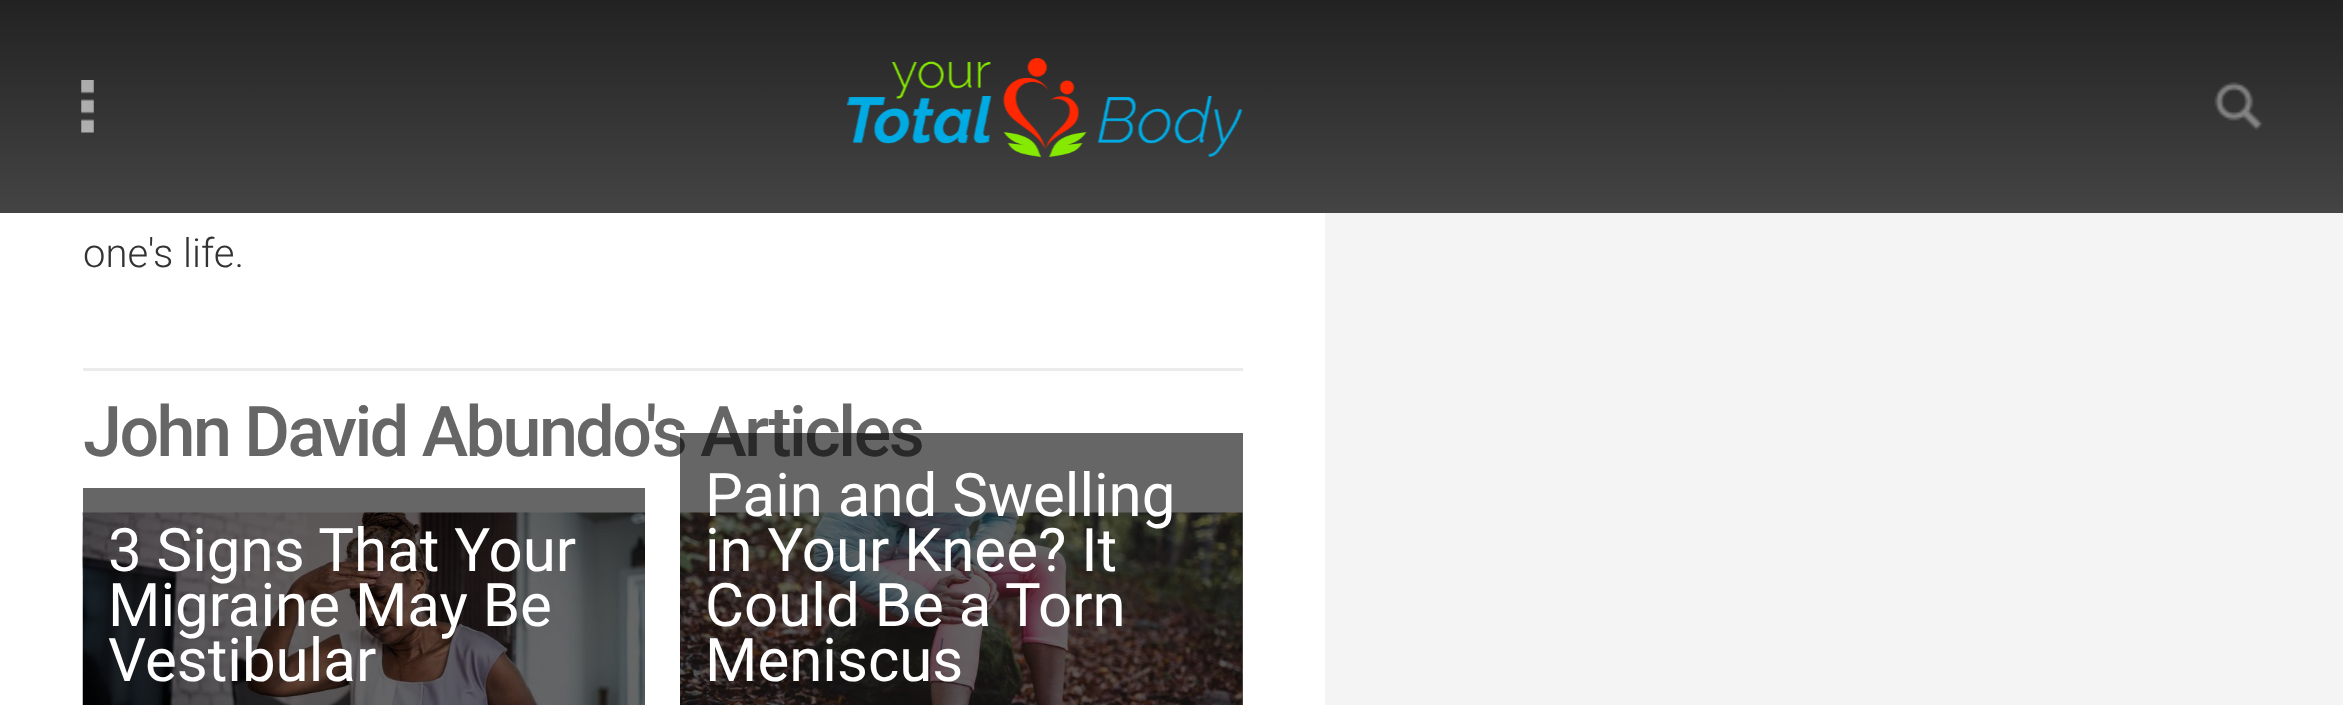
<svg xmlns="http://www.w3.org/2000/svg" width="2343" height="705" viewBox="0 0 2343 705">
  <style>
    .t1 { font: 300 40px Roboto; fill: #333; }
    .t2 { font: 500 70px Roboto; letter-spacing: -2.5px; fill: #666; }
    .t3 { font: 60px Roboto; fill: #fff; }
  </style>
  <defs>
    <linearGradient id="g1" gradientUnits="userSpaceOnUse" x1="1173" y1="0" x2="1173" y2="213"><stop offset="0" stop-color="#222"/><stop offset="1" stop-color="#444"/></linearGradient>
  </defs>
  <rect width="100%" height="100%" fill="#fff"/>
  <rect x="83" y="488" width="562" height="25" fill="#666"/>
  <rect x="0" y="0" width="2343" height="213" fill="url(#g1)"/>
  <image x="81" y="80" width="13" height="53" href="images/1.png"/>
  <image x="847" y="58" width="396" height="99" href="images/2.png"/>
  <image x="2214" y="82" width="49" height="48" href="images/3.png"/>
  <text x="83" y="267" class="t1">one's life.</text>
  <rect x="83" y="368" width="1160" height="3" fill="#ebebeb"/>
  <text x="83" y="456" class="t2">John David Abundo's Articles</text>
  <image x="82" y="512" width="563" height="193" href="images/4.png"/>
  <text x="108" y="571" class="t3">3 Signs That Your</text>
  <text x="108" y="626" class="t3">Migraine May Be</text>
  <text x="108" y="681" class="t3">Vestibular</text>
  <image x="680" y="512" width="563" height="193" href="images/5.png"/>
  <rect x="680" y="433" width="563" height="272" fill="#00000099"/>
  <text x="705" y="516" class="t3">Pain and Swelling</text>
  <text x="705" y="571" class="t3">in Your Knee? It</text>
  <text x="705" y="626" class="t3">Could Be a Torn</text>
  <text x="705" y="681" class="t3">Meniscus</text>
  <rect x="1325" y="213" width="1018" height="492" fill="#f5f4f5"/>
</svg>
